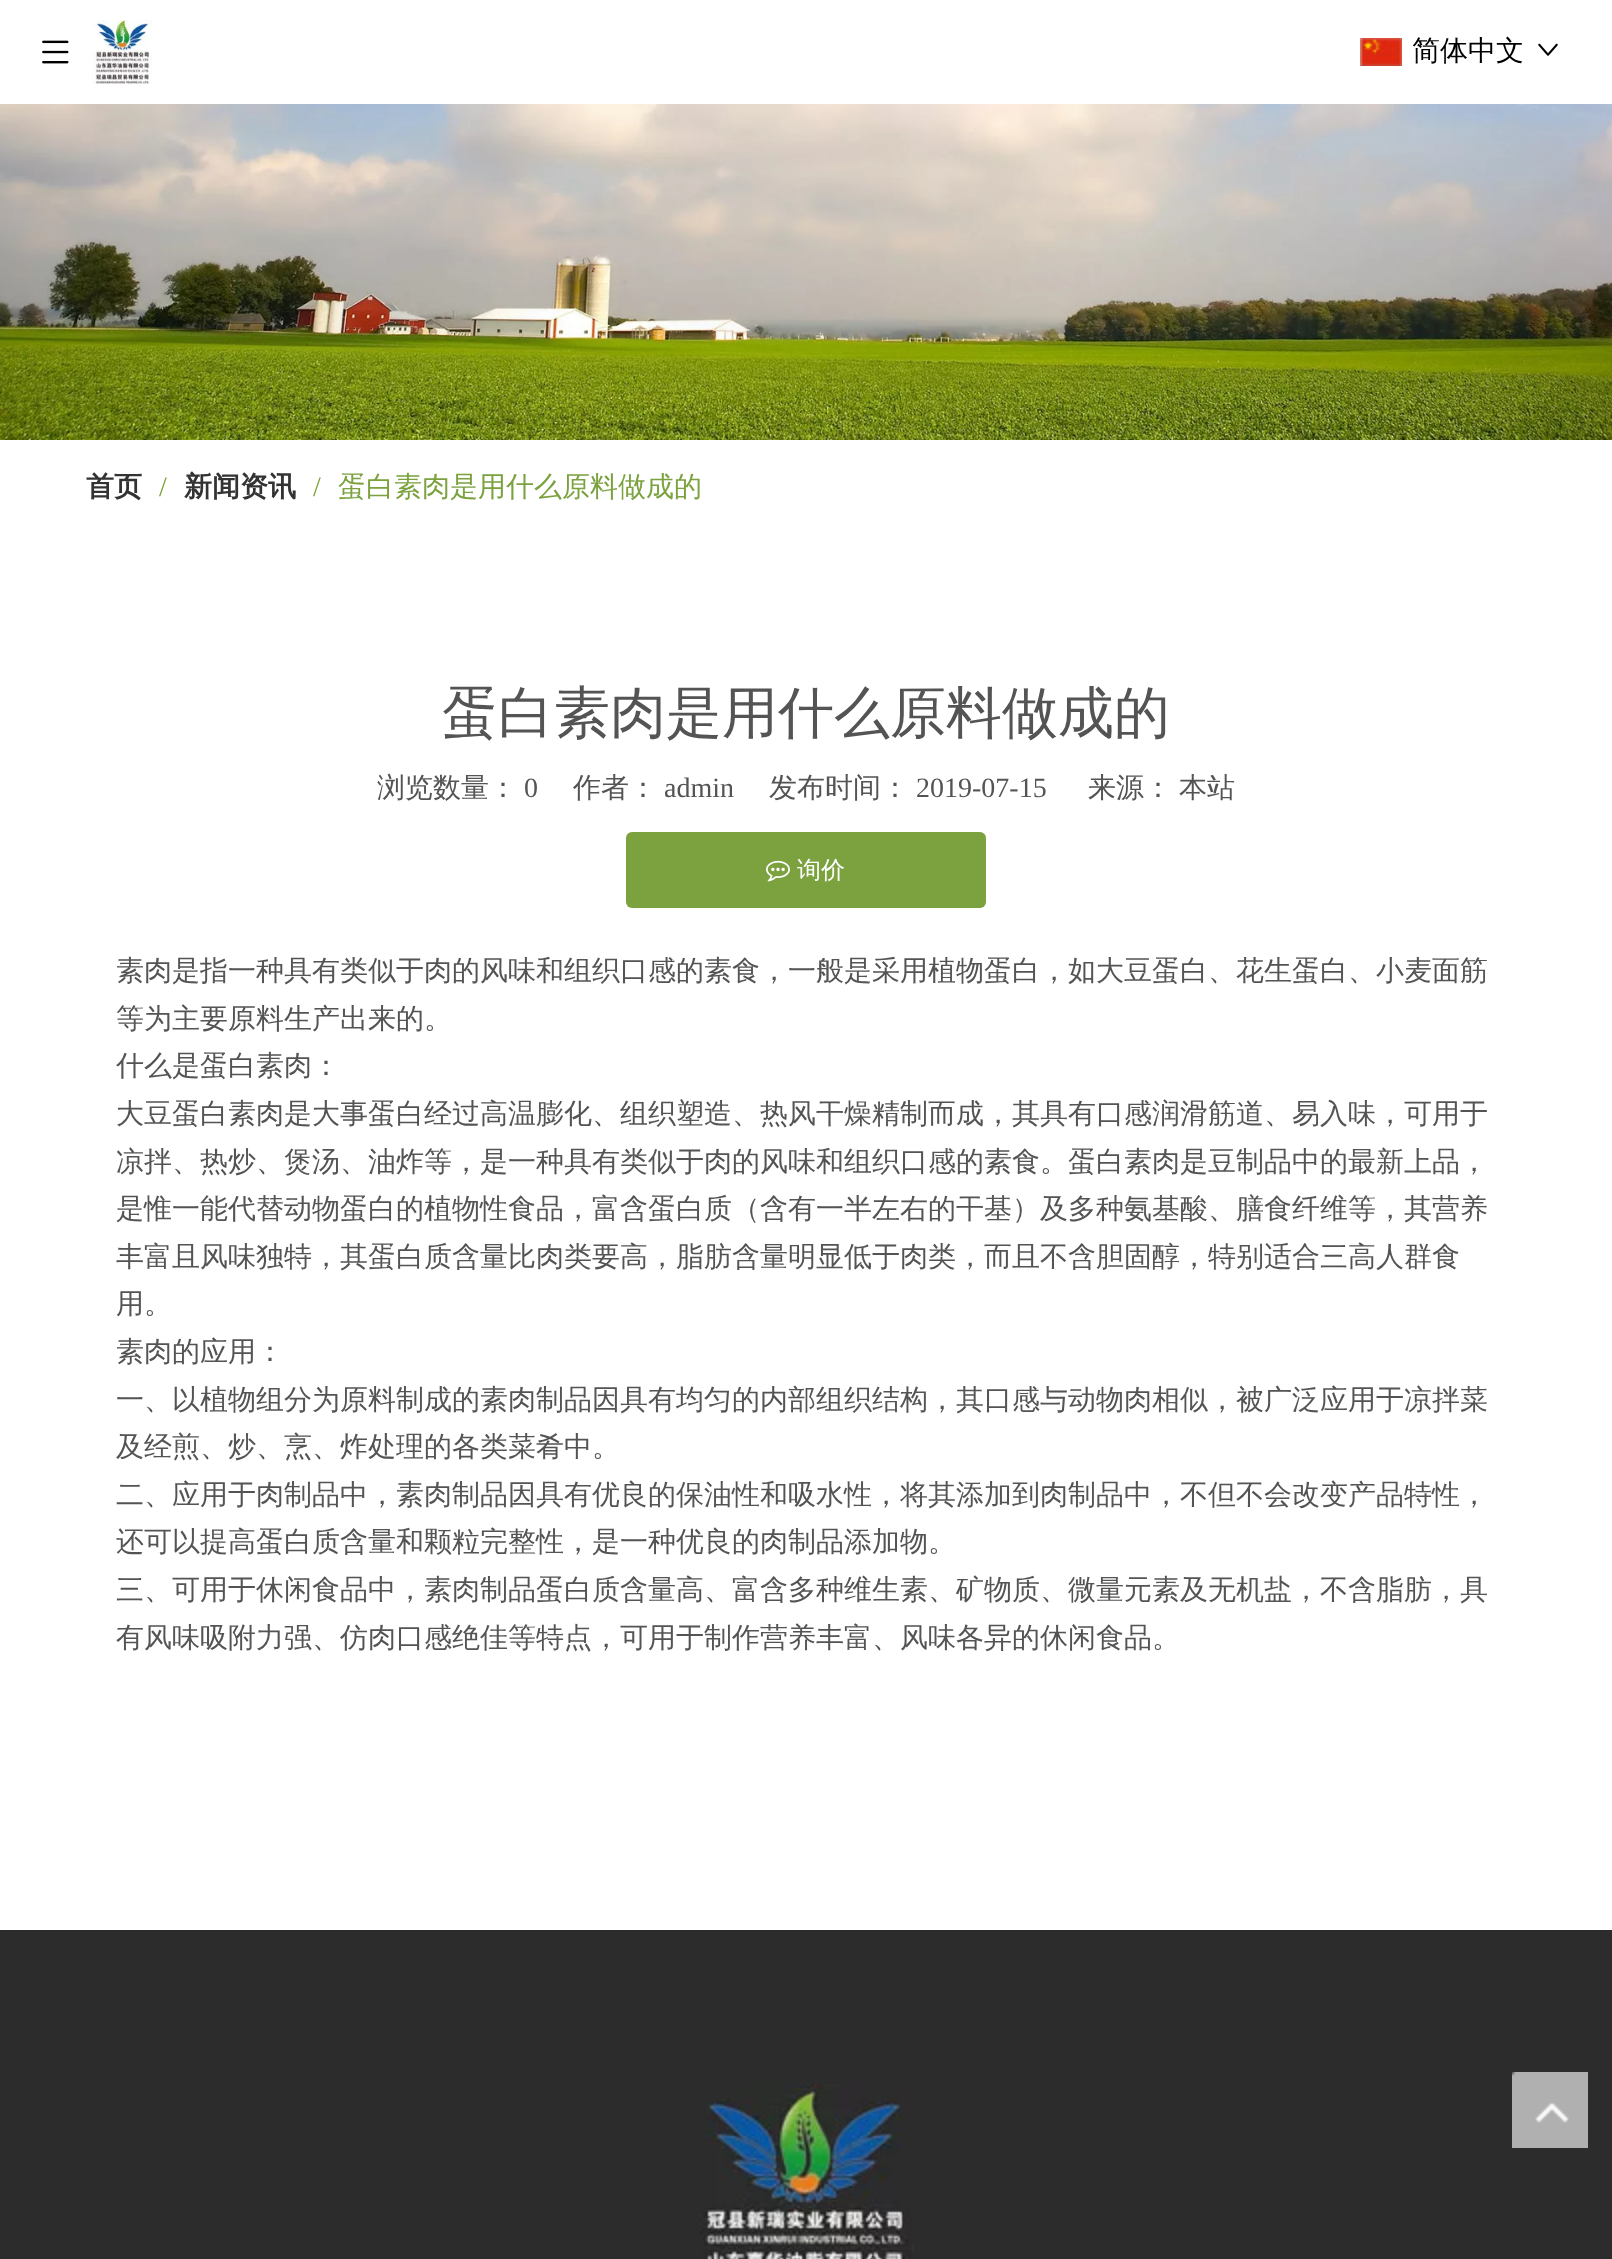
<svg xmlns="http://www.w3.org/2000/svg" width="1612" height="2259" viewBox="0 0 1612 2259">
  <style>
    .t1 { font: 500 28px WenQuanYi Zen Hei; fill: #000; }
    .t2 { font: bold 28px WenQuanYi Zen Hei; fill: #333; }
    .t3 { font: 28px Liberation Serif; fill: #7ba23f; }
    .t4 { font: 500 28px WenQuanYi Zen Hei; fill: #7ba23f; }
    .t5 { font: 500 56px WenQuanYi Zen Hei; fill: #545454; }
    .t6 { font: 500 28px WenQuanYi Zen Hei; fill: #545454; }
    .t7 { font: 28px Liberation Serif; fill: #545454; }
    .t8 { font: 500 24px WenQuanYi Zen Hei; fill: #fff; }
  </style>
  <rect width="100%" height="100%" fill="#fff"/>
  <image x="42" y="40" width="27" height="24" href="images/1.png"/>
  <image x="92" y="20" width="60" height="64" href="images/2.png"/>
  <image x="1360" y="38" width="42" height="28" href="images/3.png"/>
  <text x="1412" y="60" class="t1">简体中文</text>
  <image x="1538" y="43" width="20" height="13" href="images/4.png"/>
  <image x="0" y="104" width="1612" height="336" href="images/5.png"/>
  <text x="86" y="496" class="t2">首页</text>
  <text x="159" y="496" class="t3">/</text>
  <text x="184" y="496" class="t2">新闻资讯</text>
  <text x="313" y="496" class="t3">/</text>
  <text x="338" y="496" class="t4">蛋白素肉是用什么原料做成的</text>
  <text x="442" y="732" class="t5">蛋白素肉是用什么原料做成的</text>
  <text x="377" y="797" class="t6">浏览数量：</text>
  <text x="524" y="797" class="t7">0</text>
  <text x="573" y="797" class="t6">作者：</text>
  <text x="664" y="797" class="t7">admin</text>
  <text x="769" y="797" class="t6">发布时间：</text>
  <text x="916" y="797" class="t7">2019-07-15</text>
  <text x="1088" y="797" class="t6">来源：</text>
  <text x="1179" y="797" class="t6">本站</text>
  <rect x="626" y="832" width="360" height="76" rx="6" fill="#7ba23f"/>
  <image x="766" y="860" width="24" height="22" href="images/6.png"/>
  <text x="797" y="878" class="t8">询价</text>
  <text x="116" y="980" class="t6">素肉是指一种具有类似于肉的风味和组织口感的素食，一般是采用植物蛋白，如大豆蛋白、花生蛋白、小麦面筋</text>
  <text x="116" y="1028" class="t6">等为主要原料生产出来的。</text>
  <text x="116" y="1075" class="t6">什么是蛋白素肉：</text>
  <text x="116" y="1123" class="t6">大豆蛋白素肉是大事蛋白经过高温膨化、组织塑造、热风干燥精制而成，其具有口感润滑筋道、易入味，可用于</text>
  <text x="116" y="1171" class="t6">凉拌、热炒、煲汤、油炸等，是一种具有类似于肉的风味和组织口感的素食。蛋白素肉是豆制品中的最新上品，</text>
  <text x="116" y="1218" class="t6">是惟一能代替动物蛋白的植物性食品，富含蛋白质（含有一半左右的干基）及多种氨基酸、膳食纤维等，其营养</text>
  <text x="116" y="1266" class="t6">丰富且风味独特，其蛋白质含量比肉类要高，脂肪含量明显低于肉类，而且不含胆固醇，特别适合三高人群食</text>
  <text x="116" y="1313" class="t6">用。</text>
  <text x="116" y="1361" class="t6">素肉的应用：</text>
  <text x="116" y="1409" class="t6">一、以植物组分为原料制成的素肉制品因具有均匀的内部组织结构，其口感与动物肉相似，被广泛应用于凉拌菜</text>
  <text x="116" y="1456" class="t6">及经煎、炒、烹、炸处理的各类菜肴中。</text>
  <text x="116" y="1504" class="t6">二、应用于肉制品中，素肉制品因具有优良的保油性和吸水性，将其添加到肉制品中，不但不会改变产品特性，</text>
  <text x="116" y="1551" class="t6">还可以提高蛋白质含量和颗粒完整性，是一种优良的肉制品添加物。</text>
  <text x="116" y="1599" class="t6">三、可用于休闲食品中，素肉制品蛋白质含量高、富含多种维生素、矿物质、微量元素及无机盐，不含脂肪，具</text>
  <text x="116" y="1647" class="t6">有风味吸附力强、仿肉口感绝佳等特点，可用于制作营养丰富、风味各异的休闲食品。</text>
  <rect x="0" y="1930" width="1612" height="329" fill="#2c2c2c"/>
  <image x="700" y="2084" width="214" height="175" href="images/7.png"/>
  <image x="1512" y="2072" width="76" height="76" href="images/8.png"/>
</svg>
